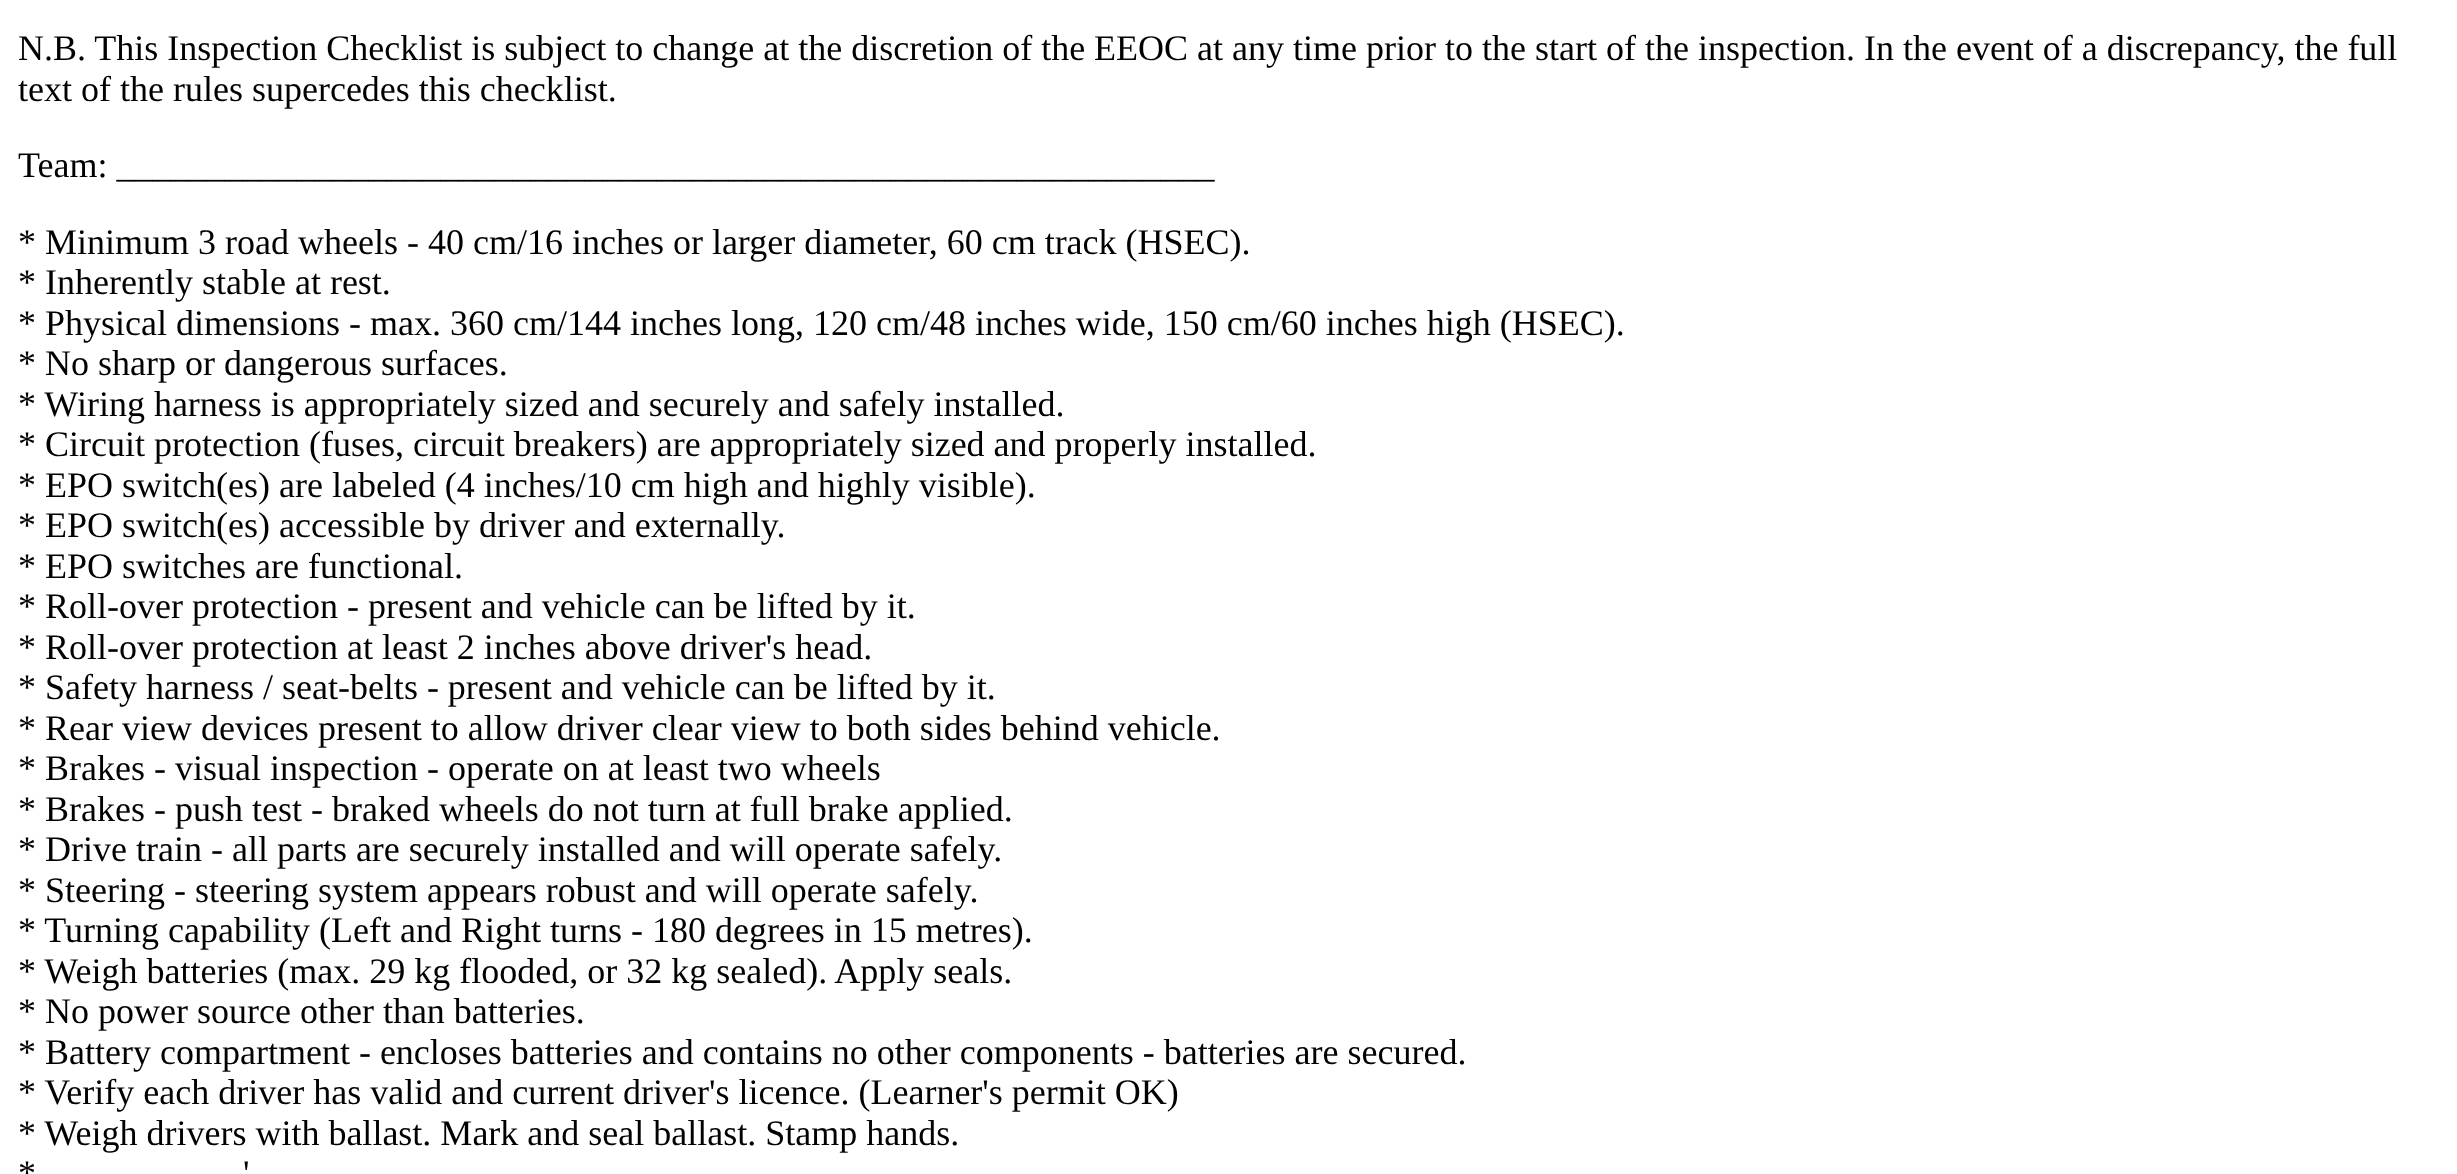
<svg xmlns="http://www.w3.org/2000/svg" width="2457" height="1174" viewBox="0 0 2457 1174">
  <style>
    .t1 { font: 36px Liberation Serif; fill: #000; }
  </style>
  <rect width="100%" height="100%" fill="#fff"/>
  <text x="18" y="60" class="t1">N.B. This Inspection Checklist is subject to change at the discretion of the EEOC at any time prior to the start of the inspection. In the event of a discrepancy, the full</text>
  <text x="18" y="101" class="t1">text of the rules supercedes this checklist.</text>
  <text x="18" y="177" class="t1">Team: _____________________________________________________________</text>
  <text x="18" y="254" class="t1">* Minimum 3 road wheels - 40 cm/16 inches or larger diameter, 60 cm track (HSEC).</text>
  <text x="18" y="294" class="t1">* Inherently stable at rest.</text>
  <text x="18" y="335" class="t1">* Physical dimensions - max. 360 cm/144 inches long, 120 cm/48 inches wide, 150 cm/60 inches high (HSEC).</text>
  <text x="18" y="375" class="t1">* No sharp or dangerous surfaces.</text>
  <text x="18" y="416" class="t1">* Wiring harness is appropriately sized and securely and safely installed.</text>
  <text x="18" y="456" class="t1">* Circuit protection (fuses, circuit breakers) are appropriately sized and properly installed.</text>
  <text x="18" y="497" class="t1">* EPO switch(es) are labeled (4 inches/10 cm high and highly visible).</text>
  <text x="18" y="537" class="t1">* EPO switch(es) accessible by driver and externally.</text>
  <text x="18" y="578" class="t1">* EPO switches are functional.</text>
  <text x="18" y="618" class="t1">* Roll-over protection - present and vehicle can be lifted by it.</text>
  <text x="18" y="659" class="t1">* Roll-over protection at least 2 inches above driver's head.</text>
  <text x="18" y="699" class="t1">* Safety harness / seat-belts - present and vehicle can be lifted by it.</text>
  <text x="18" y="740" class="t1">* Rear view devices present to allow driver clear view to both sides behind vehicle.</text>
  <text x="18" y="780" class="t1">* Brakes - visual inspection - operate on at least two wheels</text>
  <text x="18" y="821" class="t1">* Brakes - push test - braked wheels do not turn at full brake applied.</text>
  <text x="18" y="861" class="t1">* Drive train - all parts are securely installed and will operate safely.</text>
  <text x="18" y="902" class="t1">* Steering - steering system appears robust and will operate safely.</text>
  <text x="18" y="942" class="t1">* Turning capability (Left and Right turns - 180 degrees in 15 metres).</text>
  <text x="18" y="983" class="t1">* Weigh batteries (max. 29 kg flooded, or 32 kg sealed). Apply seals.</text>
  <text x="18" y="1023" class="t1">* No power source other than batteries.</text>
  <text x="18" y="1064" class="t1">* Battery compartment - encloses batteries and contains no other components - batteries are secured.</text>
  <text x="18" y="1104" class="t1">* Verify each driver has valid and current driver's licence. (Learner's permit OK)</text>
  <text x="18" y="1145" class="t1">* Weigh drivers with ballast. Mark and seal ballast. Stamp hands.</text>
  <text x="18" y="1185" class="t1">*</text>
  <text x="243" y="1185" class="t1">'</text>
</svg>
